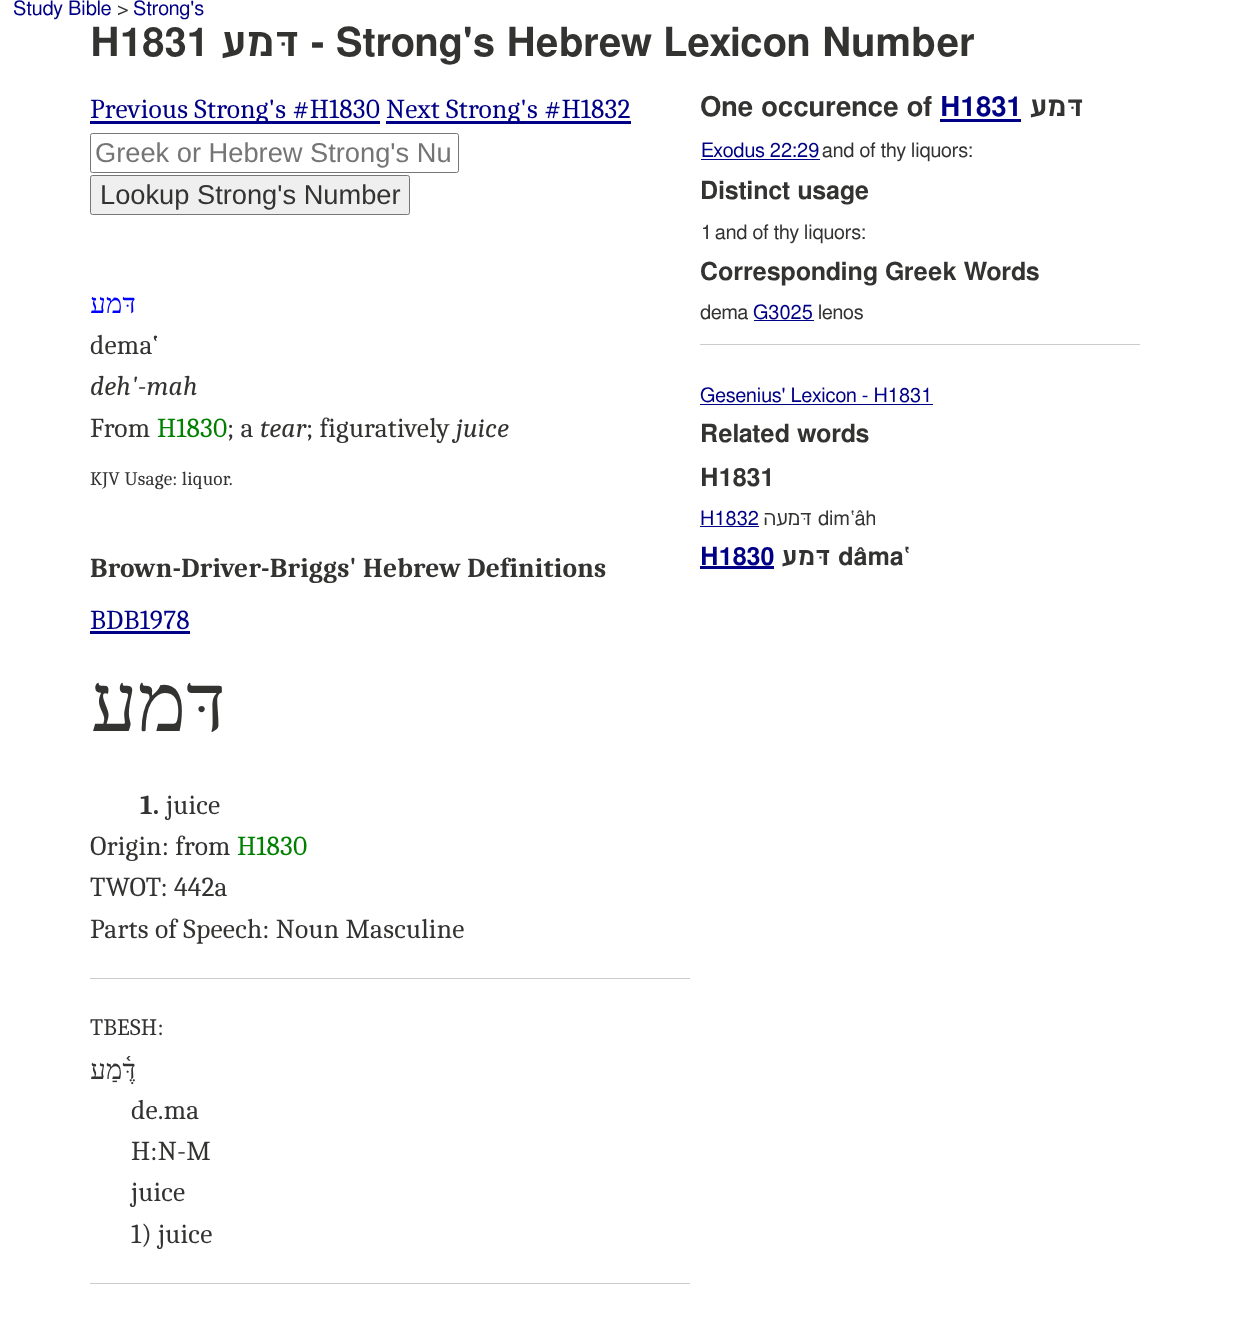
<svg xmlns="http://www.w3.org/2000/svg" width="1259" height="1322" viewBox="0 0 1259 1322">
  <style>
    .t1 { font: 20px FreeSans; fill: #000087; }
    .t2 { font: 20px FreeSans; fill: #333332; }
    .t3 { font: 600 40px FreeSans; fill: #333332; }
    .t4 { font: 600 40px FreeSans; direction: rtl; fill: #333332; }
    .t5 { font: 27.5px Caladea; letter-spacing: 0.2px; fill: #000087; }
    .t6 { font: 27.25px Liberation Sans; fill: #757575; }
    .t7 { font: 27.25px Liberation Sans; fill: #333332; }
    .t8 { font: 27.5px Liberation Serif; letter-spacing: 0.2px; direction: rtl; fill: #00f; }
    .t9 { font: 27.5px Caladea; letter-spacing: 0.2px; fill: #333332; }
    .t10 { font: italic 27.5px Caladea; letter-spacing: 0.2px; fill: #333332; }
    .t11 { font: 27.5px Caladea; letter-spacing: 0.2px; fill: #008000; }
    .t12 { font: 19.25px Caladea; letter-spacing: 0.2px; fill: #333332; }
    .t13 { font: bold 27.5px Caladea; letter-spacing: 0.2px; fill: #333332; }
    .t14 { font: 82px Liberation Serif; letter-spacing: 0.2px; direction: rtl; fill: #333332; }
    .t15 { font: 23.5px Caladea; letter-spacing: 0.2px; fill: #333332; }
    .t16 { font: 27.5px Liberation Serif; letter-spacing: 0.2px; direction: rtl; fill: #333332; }
    .t17 { font: 600 27.5px FreeSans; fill: #333332; }
    .t18 { font: 600 27.5px FreeSans; fill: #000087; }
    .t19 { font: 600 27.5px FreeSans; direction: rtl; fill: #333332; }
    .t20 { font: 600 25px FreeSans; fill: #333332; }
    .t21 { font: 20px FreeSans; direction: rtl; fill: #333332; }
    .t22 { font: 600 25px FreeSans; fill: #000087; }
    .t23 { font: 600 25px FreeSans; direction: rtl; fill: #333332; }
  </style>
  <rect width="100%" height="100%" fill="#fff"/>
  <text x="13" y="15" class="t1">Study Bible</text>
  <text x="117" y="15" class="t2">&gt;</text>
  <text x="133" y="15" class="t1">Strong's</text>
  <text x="90" y="56" class="t3">H1831</text>
  <text x="300" y="56" class="t4">דּמע</text>
  <text x="311" y="56" class="t3">- Strong's Hebrew Lexicon Number</text>
  <rect x="90" y="121" width="290" height="3" fill="#000087"/>
  <text x="90" y="118" class="t5">Previous Strong's #H1830</text>
  <rect x="386" y="121" width="245" height="3" fill="#000087"/>
  <text x="386" y="118" class="t5">Next Strong's #H1832</text>
  <rect x="90.5" y="133.5" width="368" height="39" rx="2" fill="none" stroke="#767676"/>
  <text x="95" y="162" class="t6">Greek or Hebrew Strong's Nu</text>
  <rect x="90.5" y="175.5" width="319" height="39" rx="2" fill="#efefef" stroke="#767676"/>
  <text x="100" y="204" class="t7">Lookup Strong's Number</text>
  <text x="136" y="313" class="t8">דּמע</text>
  <text x="90" y="354" class="t9">dema‛</text>
  <text x="90" y="395" class="t10">deh'-mah</text>
  <text x="90" y="437" class="t9">From</text>
  <text x="157" y="437" class="t11">H1830</text>
  <text x="227" y="437" class="t9">; a</text>
  <text x="260" y="437" class="t10">tear</text>
  <text x="306" y="437" class="t9">; figuratively</text>
  <text x="456" y="437" class="t10">juice</text>
  <text x="90" y="485" class="t12">KJV Usage: liquor.</text>
  <text x="90" y="577" class="t13">Brown-Driver-Briggs' Hebrew Definitions</text>
  <text x="90" y="629" class="t5">BDB1978</text>
  <rect x="90" y="631" width="100" height="3" fill="#000087"/>
  <text x="226" y="731" class="t14">דּמע</text>
  <text x="140" y="814" class="t13">1.</text>
  <text x="166" y="814" class="t9">juice</text>
  <text x="90" y="855" class="t9">Origin: from</text>
  <text x="237" y="855" class="t11">H1830</text>
  <text x="90" y="896" class="t9">TWOT: 442a</text>
  <text x="90" y="938" class="t9">Parts of Speech: Noun Masculine</text>
  <rect x="90" y="978" width="600" height="1" fill="#ccc"/>
  <text x="90" y="1035" class="t15">TBESH:</text>
  <text x="136" y="1079" class="t16">דֶּ֫מַע</text>
  <text x="131" y="1119" class="t9">de.ma</text>
  <text x="131" y="1160" class="t9">H:N-M</text>
  <text x="131" y="1201" class="t9">juice</text>
  <text x="131" y="1243" class="t9">1) juice</text>
  <rect x="90" y="1283" width="600" height="1" fill="#ccc"/>
  <text x="700" y="116" class="t17">One occurence of</text>
  <text x="940" y="116" class="t18">H1831</text>
  <rect x="940" y="119" width="81" height="3" fill="#000087"/>
  <text x="1084" y="116" class="t19">דּמע</text>
  <text x="701" y="157" class="t1">Exodus 22:29</text>
  <rect x="701" y="159" width="119" height="1" fill="#000087"/>
  <text x="822" y="157" class="t2">and of thy liquors:</text>
  <text x="700" y="199" class="t20">Distinct usage</text>
  <text x="701" y="239" class="t2">1</text>
  <text x="715" y="239" class="t2">and of thy liquors:</text>
  <text x="700" y="280" class="t20">Corresponding Greek Words</text>
  <text x="700" y="319" class="t2">dema</text>
  <text x="753" y="319" class="t1">G3025</text>
  <rect x="754" y="320" width="60" height="1" fill="#000087"/>
  <text x="818" y="319" class="t2">lenos</text>
  <rect x="700" y="344" width="440" height="1" fill="#ccc"/>
  <text x="700" y="402" class="t1">Gesenius' Lexicon - H1831</text>
  <rect x="700" y="404" width="233" height="1" fill="#000087"/>
  <text x="700" y="442" class="t20">Related words</text>
  <text x="700" y="486" class="t20">H1831</text>
  <text x="700" y="525" class="t1">H1832</text>
  <rect x="700" y="526" width="59" height="1" fill="#000087"/>
  <text x="812" y="525" class="t21">דּמעה</text>
  <text x="818" y="525" class="t2">dim‛âh</text>
  <text x="700" y="565" class="t22">H1830</text>
  <rect x="700" y="566" width="74" height="3" fill="#000087"/>
  <text x="831" y="565" class="t23">דּמע</text>
  <text x="838" y="565" class="t20">dâma‛</text>
</svg>
